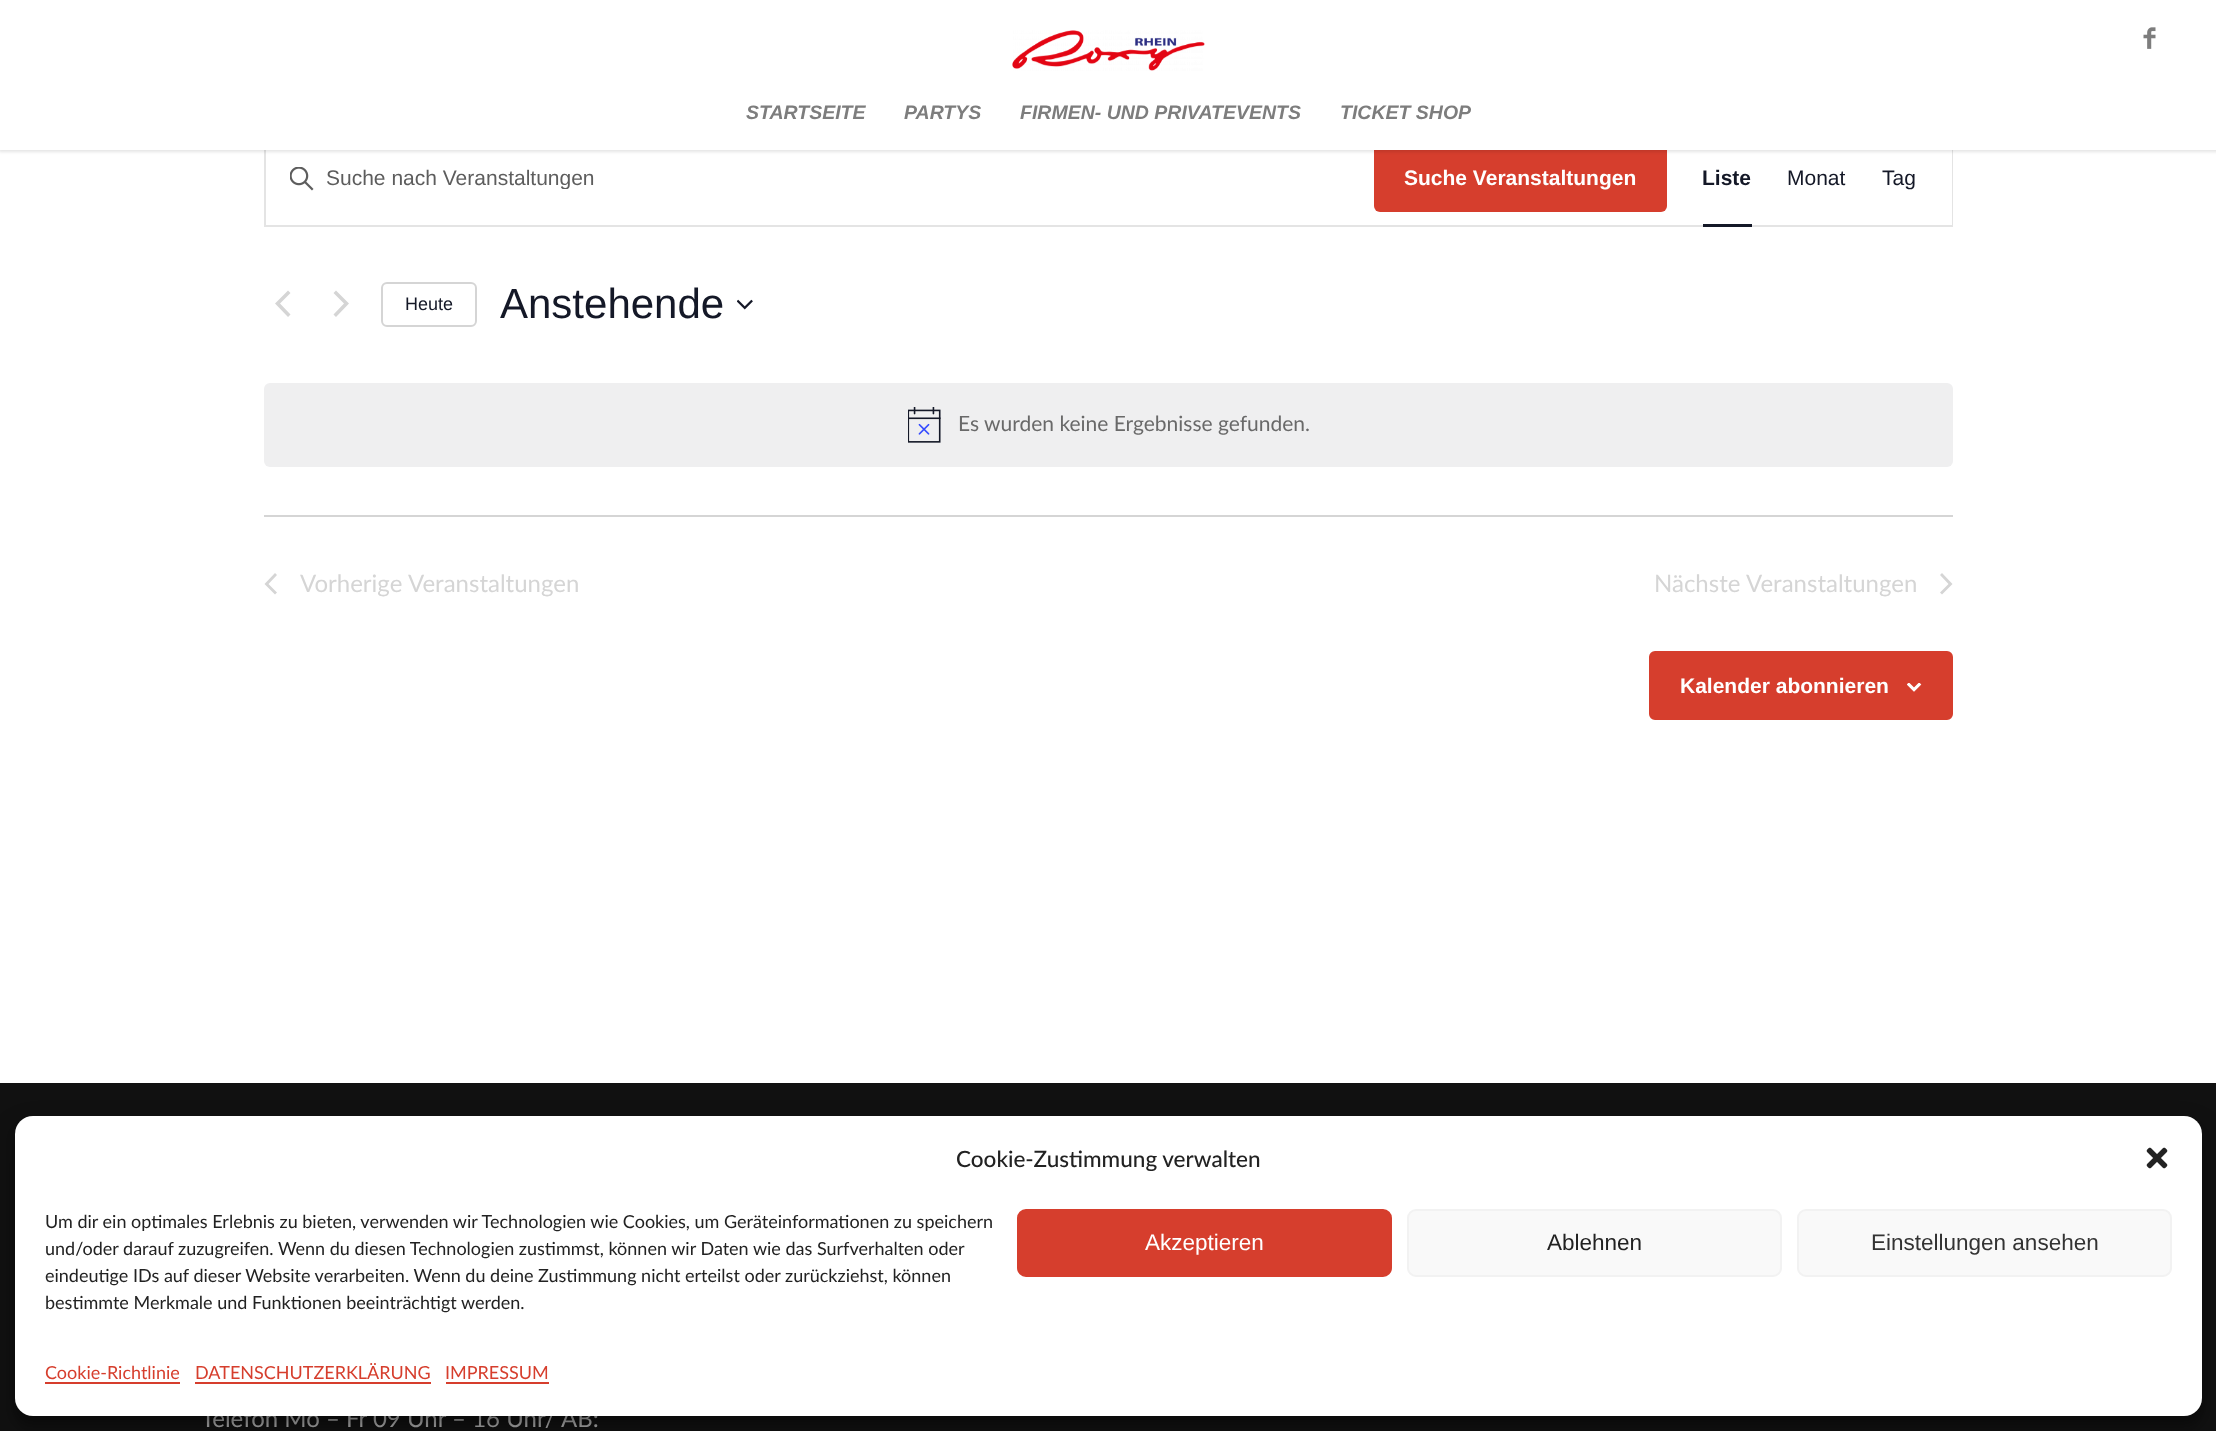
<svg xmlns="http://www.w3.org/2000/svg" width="2216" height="1431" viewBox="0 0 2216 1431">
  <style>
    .t1 { font: italic bold 19.5px Liberation Sans; fill: #7d7d7d; }
    .t2 { font: 21px Liberation Sans; fill: #5d5d5d; }
    .t3 { font: bold 21px Liberation Sans; fill: #fff; }
    .t4 { font: bold 21px Liberation Sans; fill: #141827; }
    .t5 { font: 21px Liberation Sans; fill: #141827; }
    .t6 { font: 18px Liberation Sans; fill: #141827; }
    .t7 { font: 42px Liberation Sans; fill: #141827; }
    .t8 { font: 21px Lato; fill: #696969; }
    .t9 { font: 24px Lato; fill: #d5d5d5; }
    .t10 { font: 24px Lato; fill: #aaa; }
    .t11 { font: 500 22.5px Lato; fill: #222; }
    .t12 { font: 18px Lato; fill: #222; }
    .t13 { font: 22.5px Liberation Sans; fill: #fff; }
    .t14 { font: 22.5px Liberation Sans; fill: #222; }
    .t15 { font: 22.5px Liberation Sans; fill: #333; }
    .t16 { font: 18px Lato; fill: #d63e2d; }
  </style>
  <defs>
    <clipPath id="clip1"><rect x="326" y="165" width="1018" height="24"/></clipPath>
  </defs>
  <rect width="100%" height="100%" fill="#fff"/>
  <rect x="265" y="130" width="1687" height="96" fill="none" stroke="#e4e4e4" stroke-width="2"/>
  <rect x="1374" y="144" width="293" height="68" rx="6" fill="#d63e2d"/>
  <rect x="1951" y="150" width="1" height="75" fill="#fff"/>
  <rect x="-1" y="-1" width="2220" height="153" fill="#0000001a" filter="blur(1.5px)"/>
  <rect x="0" y="0" width="2216" height="150" fill="#fff"/>
  <image x="1012" y="30" width="193" height="41" href="images/1.png"/>
  <image x="2143" y="27" width="13" height="22" href="images/2.png"/>
  <text x="746" y="119" class="t1">STARTSEITE</text>
  <text x="904" y="119" class="t1">PARTYS</text>
  <text x="1020" y="119" class="t1">FIRMEN- UND PRIVATEVENTS</text>
  <text x="1340" y="119" class="t1">TICKET SHOP</text>
  <image x="290" y="167" width="24" height="24" href="images/3.png"/>
  <g clip-path="url(#clip1)">
    <text x="326" y="185" class="t2">Suche nach Veranstaltungen</text>
  </g>
  <text x="1404" y="185" class="t3">Suche Veranstaltungen</text>
  <text x="1702" y="185" class="t4">Liste</text>
  <rect x="1703" y="224" width="49" height="3" fill="#141827"/>
  <text x="1787" y="185" class="t5">Monat</text>
  <text x="1882" y="185" class="t5">Tag</text>
  <path d="M290.5 314.5L288 317L275 303.5L288 290.5L290.5 293L280 303.5Z" fill="#d5d5d5"/>
  <path d="M333.5 293L336 290.5L349 303.5L336 317L333.5 314.5L344 303.5Z" fill="#d5d5d5"/>
  <rect x="382" y="283" width="94" height="43" rx="5" fill="none" stroke="#d5d5d5" stroke-width="2"/>
  <text x="405" y="310" class="t6">Heute</text>
  <text x="500" y="318" class="t7">Anstehende</text>
  <image x="737" y="299" width="16" height="11" href="images/4.png"/>
  <rect x="264" y="383" width="1689" height="84" rx="6" fill="#efeff0"/>
  <image x="908" y="407" width="33" height="36" href="images/5.png"/>
  <text x="958" y="431" class="t8">Es wurden keine Ergebnisse gefunden.</text>
  <rect x="264" y="515" width="1689" height="2" fill="#d5d5d5"/>
  <path d="M277 592.5L275 594.5L264.5 584L275 573L277 575L268.5 584Z" fill="#d5d5d5"/>
  <text x="300" y="592" class="t9">Vorherige</text>
  <text x="408" y="592" class="t9">Veranstaltungen</text>
  <text x="1654" y="592" class="t9">Nächste</text>
  <text x="1746" y="592" class="t9">Veranstaltungen</text>
  <path d="M1940 575L1942 573L1952.5 584L1942 594.5L1940 592.5L1948.5 584Z" fill="#d5d5d5"/>
  <rect x="1650" y="652" width="302" height="67" rx="5" fill="#d63e2d" stroke="#d63e2d" stroke-width="2"/>
  <text x="1680" y="693" class="t3">Kalender abonnieren</text>
  <image x="1907" y="683" width="15" height="9" href="images/6.png"/>
  <rect x="0" y="1083" width="2216" height="348" fill="#111"/>
  <text x="201" y="1427" class="t10">Telefon Mo – Fr 09 Uhr – 16 Uhr/ AB:</text>
  <rect x="15" y="1125" width="2187" height="300" rx="18" fill="#0000003b" filter="blur(4.5px)"/>
  <rect x="15" y="1131" width="2187" height="300" rx="18" fill="#00000030" filter="blur(15px)"/>
  <rect x="15" y="1116" width="2187" height="300" rx="18" fill="#fff"/>
  <text x="956" y="1167" class="t11">Cookie-Zustimmung verwalten</text>
  <image x="2146" y="1147" width="22" height="22" href="images/7.png"/>
  <text x="45" y="1228" class="t12">Um dir ein optimales Erlebnis zu bieten, verwenden wir Technologien wie Cookies, um Geräteinformationen zu speichern</text>
  <text x="45" y="1255" class="t12">und/oder darauf zuzugreifen. Wenn du diesen Technologien zustimmst, können wir Daten wie das Surfverhalten oder</text>
  <text x="45" y="1282" class="t12">eindeutige IDs auf dieser Website verarbeiten. Wenn du deine Zustimmung nicht erteilst oder zurückziehst, können</text>
  <text x="45" y="1309" class="t12">bestimmte Merkmale und Funktionen beeinträchtigt werden.</text>
  <rect x="1018" y="1210" width="373" height="66" rx="8" fill="#d63e2d" stroke="#d63e2d" stroke-width="2"/>
  <text x="1145" y="1250" class="t13">Akzeptieren</text>
  <rect x="1408" y="1210" width="373" height="66" rx="8" fill="#f9f9f9" stroke="#f2f2f2" stroke-width="2"/>
  <text x="1547" y="1250" class="t14">Ablehnen</text>
  <rect x="1798" y="1210" width="373" height="66" rx="8" fill="#f9f9f9" stroke="#f2f2f2" stroke-width="2"/>
  <text x="1871" y="1250" class="t15">Einstellungen ansehen</text>
  <text x="45" y="1379" class="t16">Cookie-Richtlinie</text>
  <rect x="45" y="1382" width="135" height="2" fill="#d63e2d"/>
  <text x="195" y="1379" class="t16">DATENSCHUTZERKLÄRUNG</text>
  <rect x="195" y="1382" width="236" height="2" fill="#d63e2d"/>
  <text x="445" y="1379" class="t16">IMPRESSUM</text>
  <rect x="446" y="1382" width="103" height="2" fill="#d63e2d"/>
</svg>
